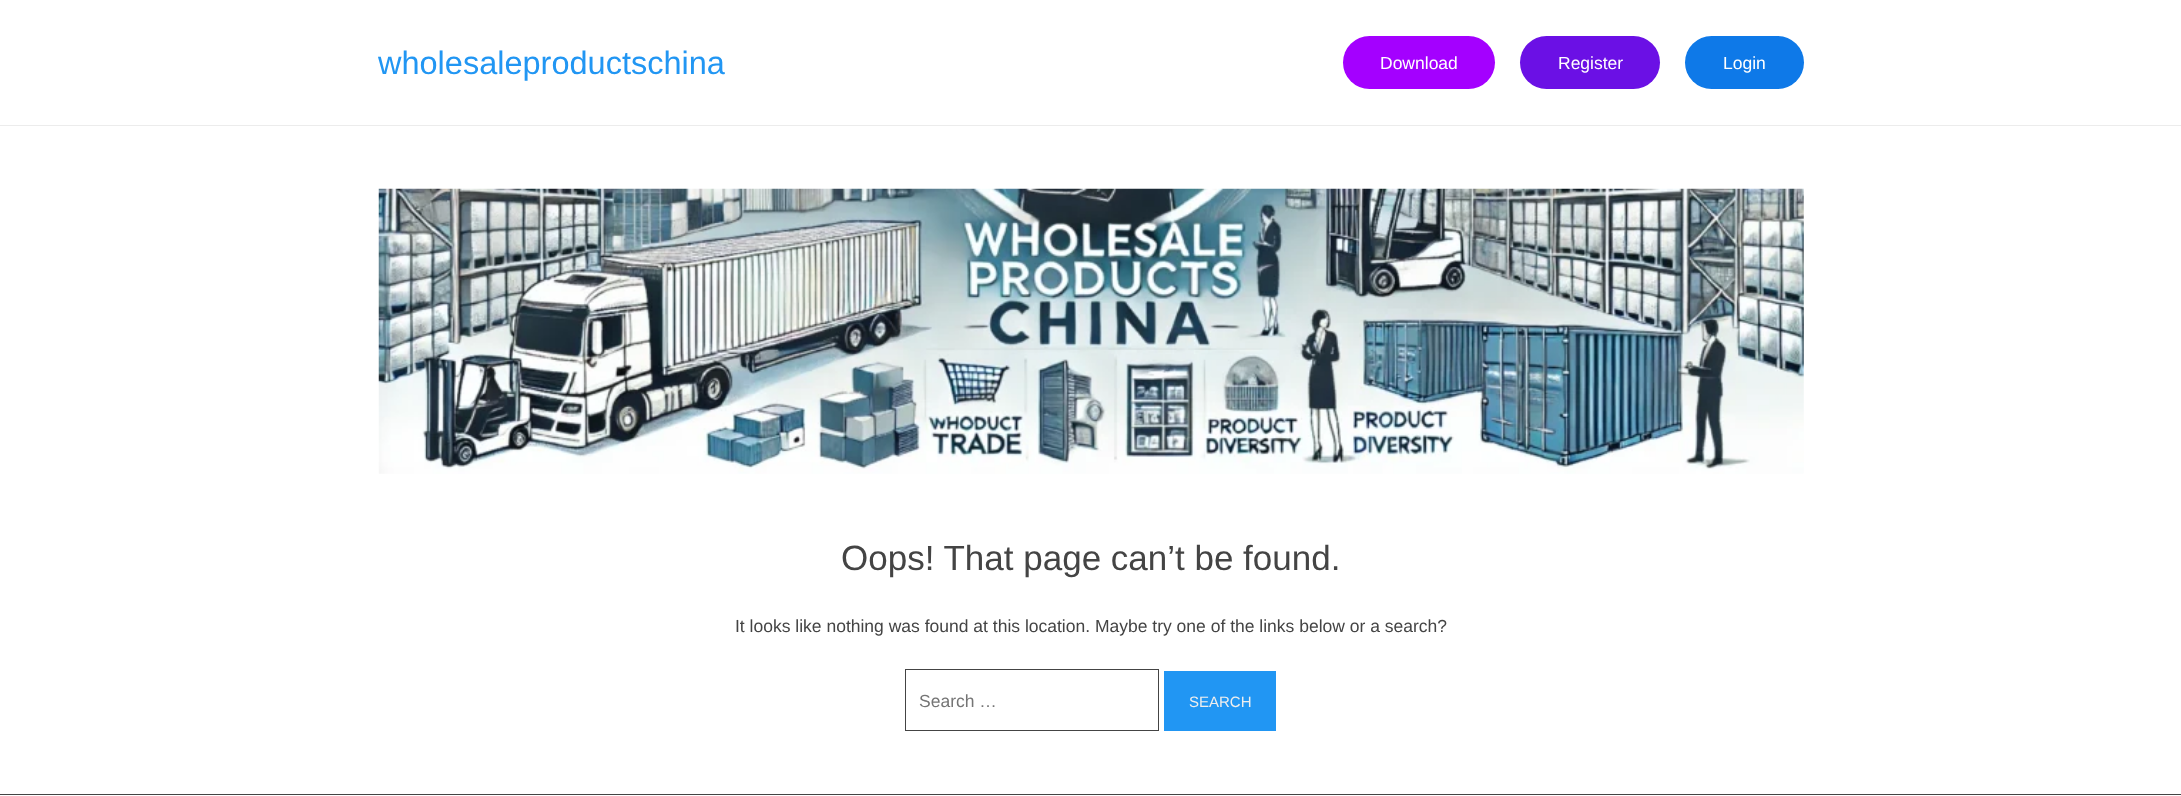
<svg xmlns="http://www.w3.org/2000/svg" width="2181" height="796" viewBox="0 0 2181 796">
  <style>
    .t1 { font: 32.5px Liberation Sans; fill: #2196f3; }
    .t2 { font: 17.5px Liberation Sans; fill: #fff; }
    .t3 { font: 35px Liberation Sans; fill: #444; }
    .t4 { font: 17.5px Liberation Sans; fill: #444; }
    .t5 { font: 17.5px Liberation Sans; fill: #757575; }
    .t6 { font: 15px Liberation Sans; fill: #eee; }
  </style>
  <rect width="100%" height="100%" fill="#fff"/>
  <rect x="0" y="125" width="2181" height="1" fill="#ececec"/>
  <text x="378" y="74" class="t1">wholesaleproductschina</text>
  <rect x="1343" y="36" width="152" height="53" rx="26.5" fill="#a400ff"/>
  <text x="1380" y="69" class="t2">Download</text>
  <rect x="1520" y="36" width="140" height="53" rx="26.5" fill="#6b10e5"/>
  <text x="1558" y="69" class="t2">Register</text>
  <rect x="1685" y="36" width="119" height="53" rx="26.5" fill="#0e79e8"/>
  <text x="1723" y="69" class="t2">Login</text>
  <image x="378" y="188" width="1426" height="286" href="images/1.png"/>
  <text x="841" y="570" class="t3">Oops! That page can’t be found.</text>
  <text x="735" y="632" class="t4">It looks like nothing was found at this location. Maybe try one of the links below or a search?</text>
  <rect x="905.5" y="669.5" width="253" height="61" fill="none" stroke="#444"/>
  <text x="919" y="707" class="t5">Search …</text>
  <rect x="1164" y="671" width="112" height="60" fill="#2196f3"/>
  <text x="1189" y="707" class="t6">SEARCH</text>
  <rect x="0" y="794" width="2181" height="1" fill="#444"/>
</svg>
